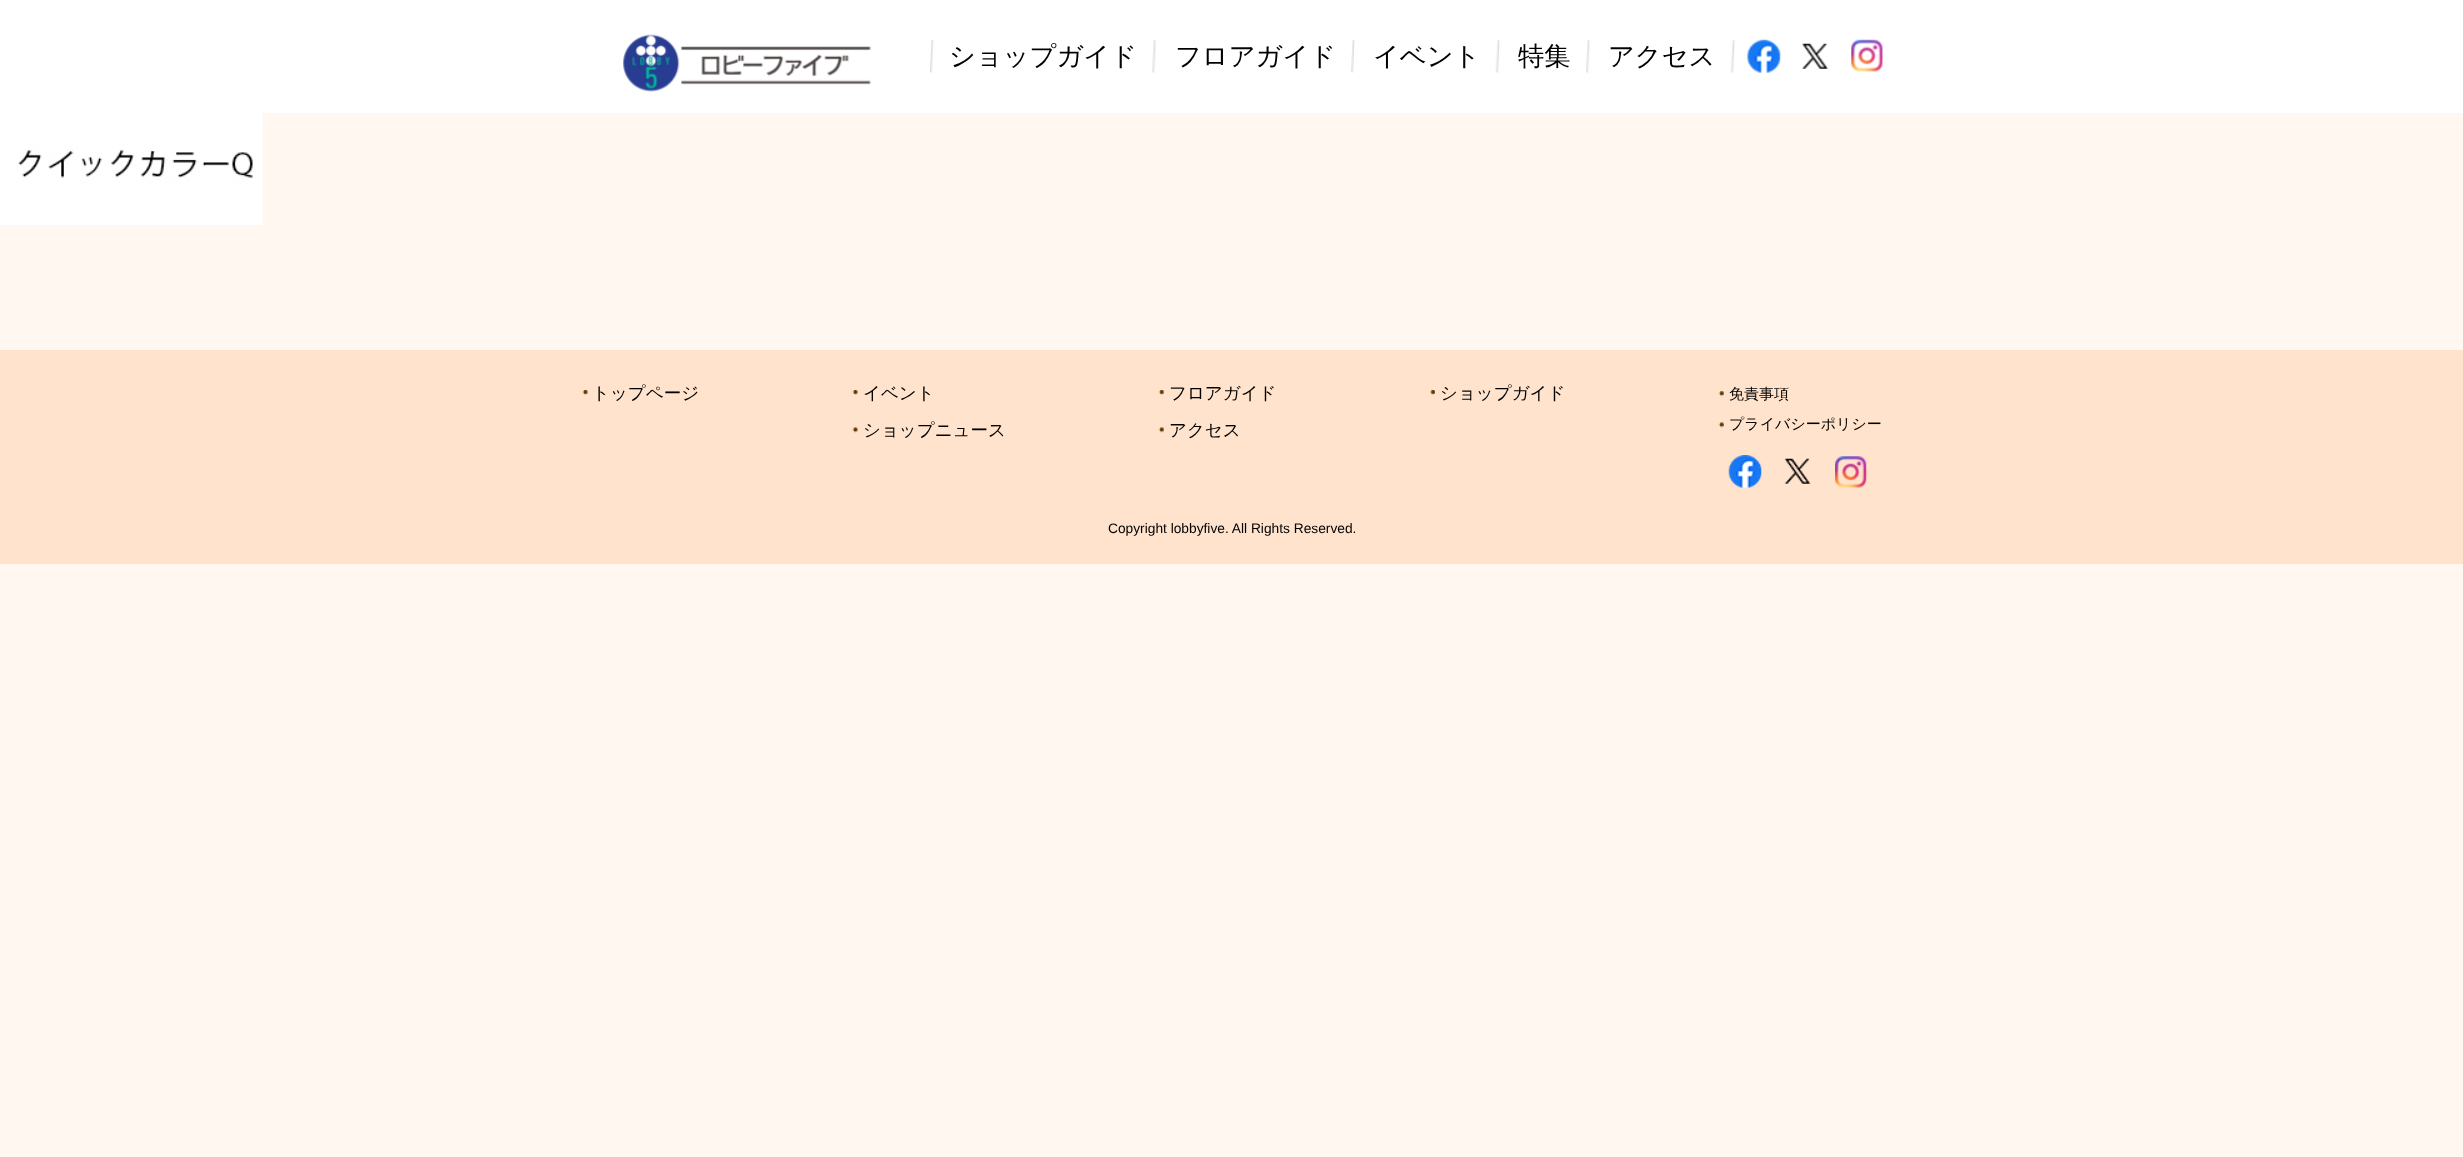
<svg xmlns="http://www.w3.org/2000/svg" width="2463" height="1157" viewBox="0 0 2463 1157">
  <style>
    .t1 { font: 500 26.25px WenQuanYi Zen Hei; fill: #000; }
    .t2 { font: 500 17.5px WenQuanYi Zen Hei; fill: #000; }
    .t3 { font: 500 15px WenQuanYi Zen Hei; fill: #000; }
    .t4 { font: 13.75px Liberation Sans; fill: #000; }
  </style>
  <rect width="100%" height="100%" fill="#fff7f0"/>
  <rect x="0" y="0" width="2463" height="113" fill="#fff"/>
  <image x="623" y="34" width="249" height="58" href="images/1.png"/>
  <image x="930" y="40" width="4" height="33" href="images/2.png"/>
  <image x="1152" y="39" width="4" height="34" href="images/3.png"/>
  <text x="949" y="65" class="t1">ショップガイド</text>
  <image x="1351" y="40" width="4" height="33" href="images/4.png"/>
  <text x="1175" y="65" class="t1">フロアガイド</text>
  <image x="1495" y="39" width="5" height="34" href="images/5.png"/>
  <text x="1373" y="65" class="t1">イベント</text>
  <image x="1586" y="39" width="4" height="34" href="images/6.png"/>
  <text x="1518" y="65" class="t1">特集</text>
  <image x="1730" y="39" width="5" height="34" href="images/5.png"/>
  <text x="1608" y="65" class="t1">アクセス</text>
  <image x="1747" y="39" width="34" height="34" href="images/7.png"/>
  <image x="1802" y="43" width="27" height="26" href="images/8.png"/>
  <image x="1851" y="39" width="32" height="33" href="images/9.png"/>
  <image x="0" y="113" width="263" height="112" href="images/10.png"/>
  <rect x="0" y="350" width="2463" height="214" fill="#ffe3cc"/>
  <image x="582" y="390" width="6" height="5" href="images/11.png"/>
  <text x="592" y="399" class="t2">トップページ</text>
  <image x="852" y="390" width="6" height="5" href="images/11.png"/>
  <text x="863" y="399" class="t2">イベント</text>
  <image x="852" y="427" width="6" height="6" href="images/12.png"/>
  <text x="863" y="436" class="t2">ショップニュース</text>
  <image x="1158" y="390" width="6" height="5" href="images/13.png"/>
  <text x="1169" y="399" class="t2">フロアガイド</text>
  <image x="1158" y="427" width="6" height="6" href="images/14.png"/>
  <text x="1169" y="436" class="t2">アクセス</text>
  <image x="1430" y="390" width="5" height="5" href="images/15.png"/>
  <text x="1440" y="399" class="t2">ショップガイド</text>
  <image x="1718" y="391" width="6" height="6" href="images/16.png"/>
  <text x="1729" y="399" class="t3">免責事項</text>
  <image x="1718" y="422" width="6" height="6" href="images/17.png"/>
  <text x="1729" y="429" class="t3">プライバシーポリシー</text>
  <image x="1728" y="455" width="34" height="33" href="images/18.png"/>
  <image x="1784" y="458" width="27" height="26" href="images/19.png"/>
  <image x="1835" y="456" width="32" height="32" href="images/20.png"/>
  <text x="1108" y="533" class="t4">Copyright lobbyfive. All Rights Reserved.</text>
</svg>
